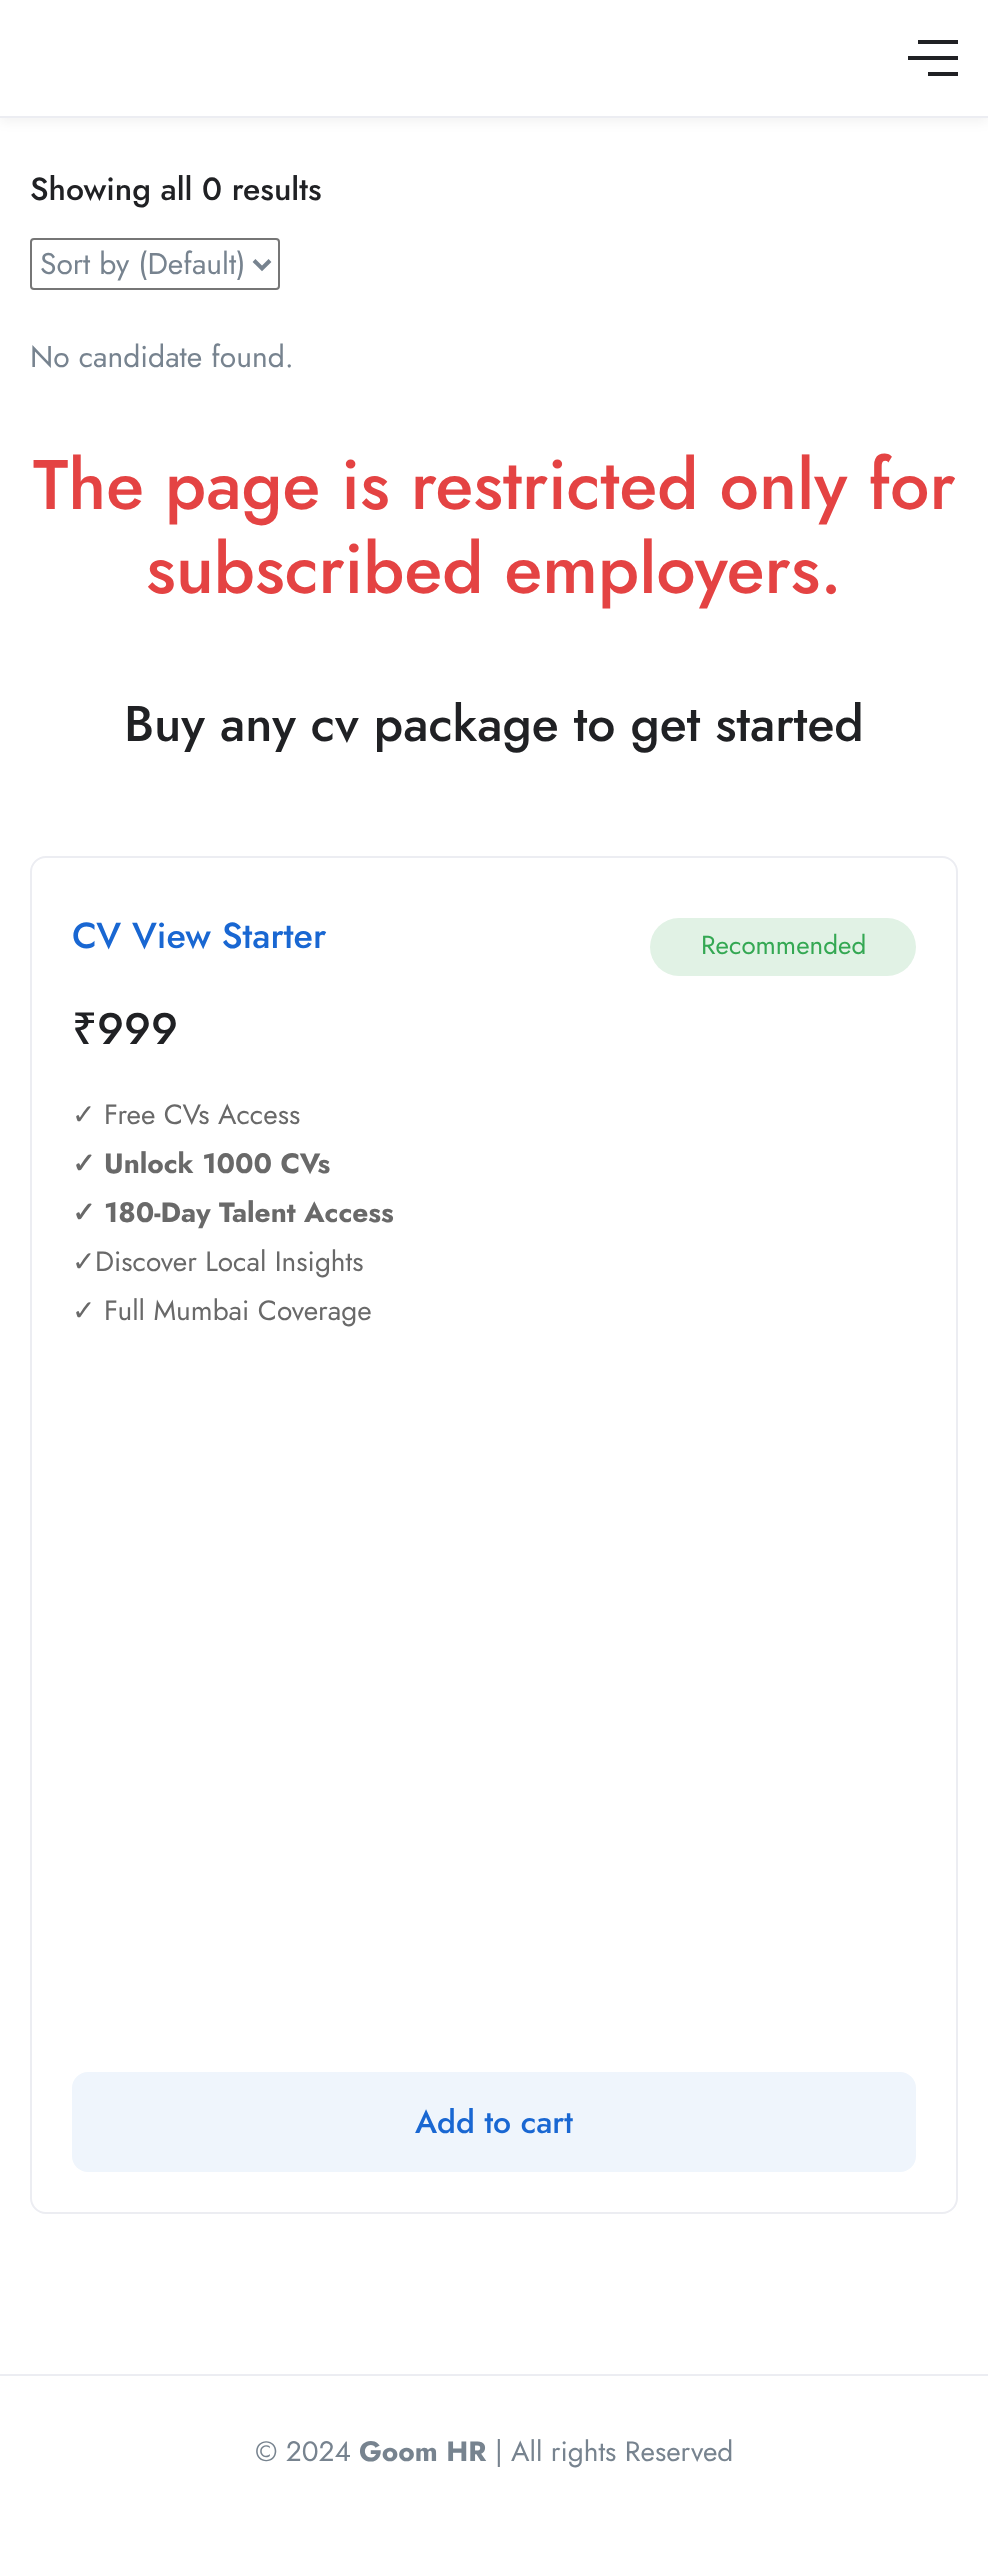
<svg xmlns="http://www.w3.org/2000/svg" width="988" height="2555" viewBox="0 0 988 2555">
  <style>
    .t1 { font: 500 32px Jost; fill: #202124; }
    .t2 { font: 30px Jost; fill: #77838f; }
    .t3 { font: 500 70px Jost; fill: #e44343; }
    .t4 { font: 500 50px Jost; fill: #202124; }
    .t5 { font: 500 36px Jost; fill: #1967d2; }
    .t6 { font: 26px Jost; fill: #34a853; }
    .t7 { font: 500 44px Noto Sans; fill: #202124; }
    .t8 { font: 500 44px Jost; fill: #202124; }
    .t9 { font: 28px DejaVu Sans; fill: #696969; }
    .t10 { font: 28px Jost; fill: #696969; }
    .t11 { font: bold 28px DejaVu Sans; fill: #696969; }
    .t12 { font: bold 28px Jost; fill: #696969; }
    .t13 { font: 500 32px Jost; fill: #1967d2; }
    .t14 { font: 28px Jost; fill: #77838f; }
    .t15 { font: bold 28px Jost; fill: #77838f; }
  </style>
  <rect width="100%" height="100%" fill="#fff"/>
  <rect x="0" y="4" width="988" height="118" fill="#0000000d" filter="blur(6px)"/>
  <rect x="0" y="0" width="988" height="116" fill="#fff"/>
  <rect x="0" y="116" width="988" height="2" fill="#ecedf2"/>
  <rect x="918" y="40" width="40" height="4" fill="#202124"/>
  <rect x="908" y="56" width="50" height="4" fill="#202124"/>
  <rect x="928" y="72" width="30" height="4" fill="#202124"/>
  <text x="30" y="200" class="t1">Showing all 0 results</text>
  <rect x="31" y="239" width="248" height="50" rx="3" fill="none" stroke="#767676" stroke-width="2"/>
  <path d="M254 260.5L262 268.5L270 260.5" fill="none" stroke="#77838f" stroke-width="4"/>
  <text x="40" y="274" class="t2">Sort by (Default)</text>
  <text x="30" y="367" class="t2">No candidate found.</text>
  <text x="33" y="509" class="t3">The page is restricted only for</text>
  <text x="146" y="593" class="t3">subscribed employers.</text>
  <text x="124" y="741" class="t4">Buy any cv package to get started</text>
  <rect x="31" y="857" width="926" height="1356" rx="15" fill="none" stroke="#ecedf2" stroke-width="2"/>
  <text x="72" y="948" class="t5">CV View Starter</text>
  <rect x="650" y="918" width="266" height="58" rx="29" fill="#e1f2e5"/>
  <text x="701" y="954" class="t6">Recommended</text>
  <text x="72" y="1044" class="t7">₹</text>
  <text x="97" y="1044" class="t8">999</text>
  <text x="72" y="1124" class="t9">✓</text>
  <text x="104" y="1124" class="t10">Free CVs Access</text>
  <text x="72" y="1173" class="t11">✓</text>
  <text x="104" y="1173" class="t12">Unlock 1000 CVs</text>
  <text x="72" y="1222" class="t11">✓</text>
  <text x="104" y="1222" class="t12">180-Day Talent Access</text>
  <text x="72" y="1271" class="t9">✓</text>
  <text x="95" y="1271" class="t10">Discover Local Insights</text>
  <text x="72" y="1320" class="t9">✓</text>
  <text x="104" y="1320" class="t10">Full Mumbai Coverage</text>
  <rect x="72" y="2072" width="844" height="100" rx="16" fill="#eff5fc"/>
  <text x="415" y="2133" class="t13">Add to cart</text>
  <rect x="0" y="2374" width="988" height="2" fill="#ecedf2"/>
  <text x="255" y="2461" class="t14">© 2024</text>
  <text x="359" y="2461" class="t15">Goom HR</text>
  <text x="495" y="2461" class="t14">| All rights Reserved</text>
</svg>
